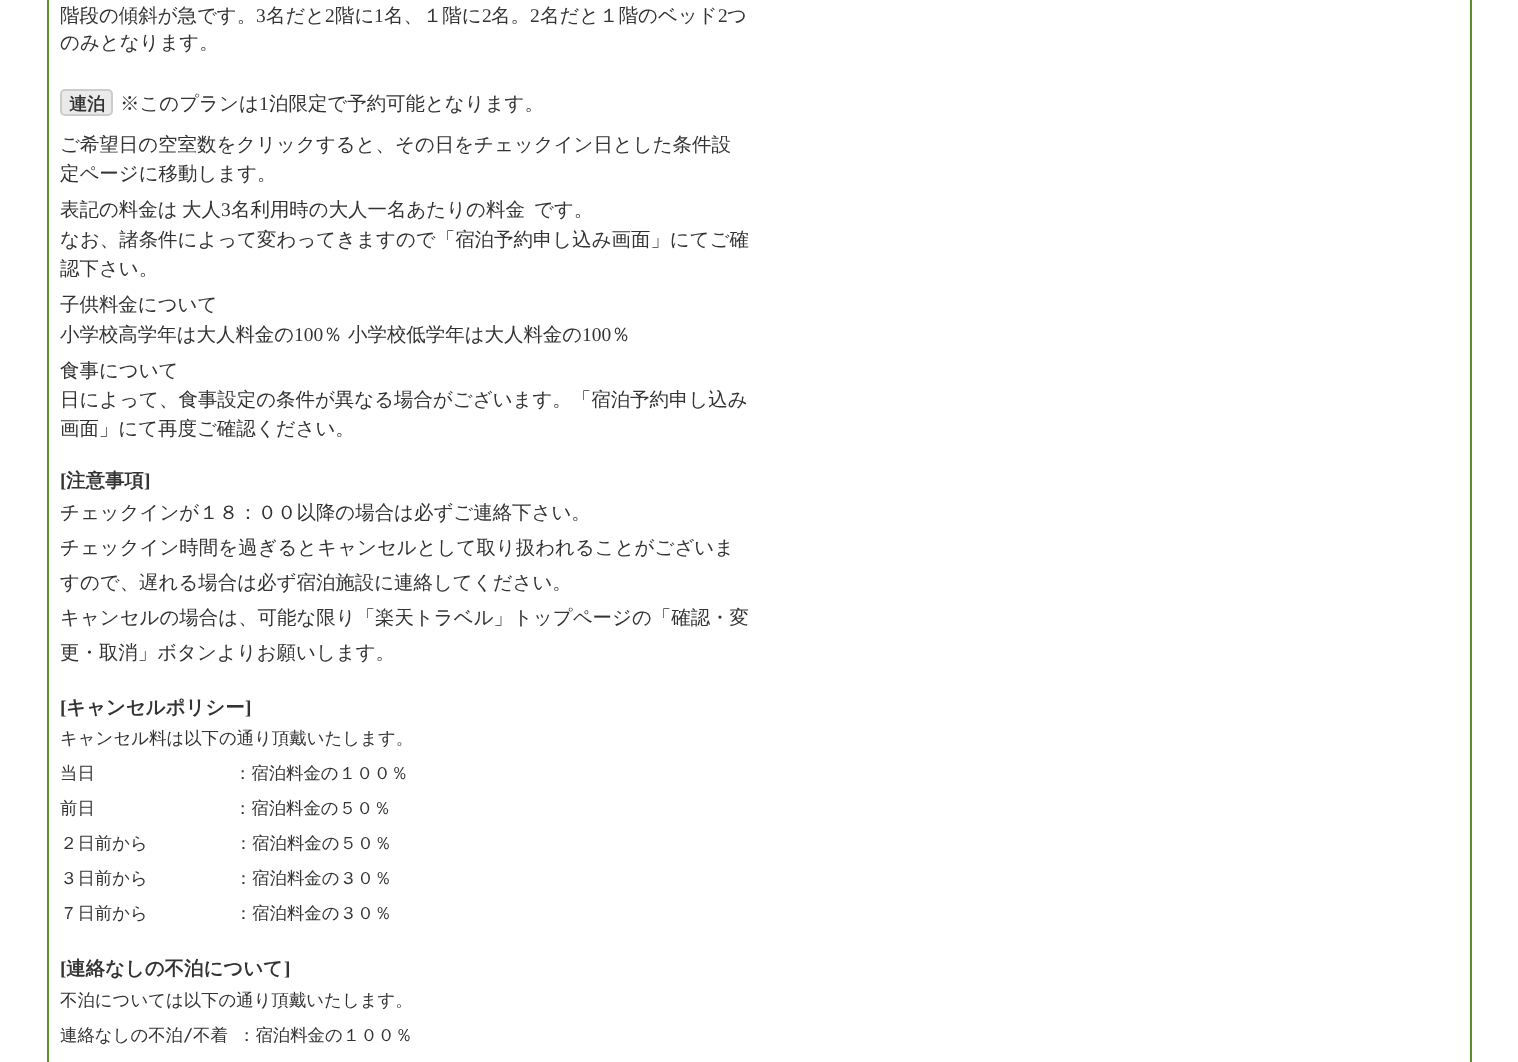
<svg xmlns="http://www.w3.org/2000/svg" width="1518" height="1062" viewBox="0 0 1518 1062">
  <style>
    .t1 { font: 500 19.45px WenQuanYi Zen Hei; fill: #333; }
    .t2 { font: 19.45px Liberation Serif; fill: #333; }
    .t3 { font: bold 18px WenQuanYi Zen Hei; fill: #333; }
    .t4 { font: bold 19.45px Liberation Serif; fill: #333; }
    .t5 { font: bold 19.45px WenQuanYi Zen Hei; fill: #333; }
    .t6 { font: 500 17.4px WenQuanYi Zen Hei; fill: #333; }
    .t7 { font: 17.4px DejaVu Sans Mono; fill: #333; }
  </style>
  <rect width="100%" height="100%" fill="#fff"/>
  <rect x="1470" y="0" width="2" height="1062" fill="#5a8e2f"/>
  <rect x="47" y="0" width="2" height="1062" fill="#5a8e2f"/>
  <text x="60" y="22" class="t1">階段の傾斜が急です。</text>
  <text x="256" y="22" class="t2">3</text>
  <text x="266" y="22" class="t1">名だと</text>
  <text x="325" y="22" class="t2">2</text>
  <text x="335" y="22" class="t1">階に</text>
  <text x="374" y="22" class="t2">1</text>
  <text x="384" y="22" class="t1">名、１階に</text>
  <text x="482" y="22" class="t2">2</text>
  <text x="491" y="22" class="t1">名。</text>
  <text x="530" y="22" class="t2">2</text>
  <text x="540" y="22" class="t1">名だと１階のベッド</text>
  <text x="718" y="22" class="t2">2</text>
  <text x="727" y="22" class="t1">つ</text>
  <text x="60" y="49" class="t1">のみとなります。</text>
  <rect x="61" y="90" width="51" height="25" rx="4" fill="#eaeaea" stroke="#ccc" stroke-width="2"/>
  <text x="69" y="110" class="t3">連泊</text>
  <text x="120" y="110" class="t1">※このプランは</text>
  <text x="259" y="110" class="t2">1</text>
  <text x="269" y="110" class="t1">泊限定で予約可能となります。</text>
  <text x="60" y="151" class="t1">ご希望日の空室数をクリックすると、その日をチェックイン日とした条件設</text>
  <text x="60" y="180" class="t1">定ページに移動します。</text>
  <text x="60" y="216" class="t1">表記の料金は</text>
  <text x="182" y="216" class="t1">大人</text>
  <text x="221" y="216" class="t2">3</text>
  <text x="231" y="216" class="t1">名利用時の大人一名あたりの料金</text>
  <text x="534" y="216" class="t1">です。</text>
  <text x="60" y="246" class="t1">なお、諸条件によって変わってきますので「宿泊予約申し込み画面」にてご確</text>
  <text x="60" y="275" class="t1">認下さい。</text>
  <text x="60" y="311" class="t1">子供料金について</text>
  <text x="60" y="341" class="t1">小学校高学年は大人料金の</text>
  <text x="294" y="341" class="t2">100</text>
  <text x="323" y="341" class="t1">％</text>
  <text x="348" y="341" class="t1">小学校低学年は大人料金の</text>
  <text x="582" y="341" class="t2">100</text>
  <text x="611" y="341" class="t1">％</text>
  <text x="60" y="377" class="t1">食事について</text>
  <text x="60" y="406" class="t1">日によって、食事設定の条件が異なる場合がございます。「宿泊予約申し込み</text>
  <text x="60" y="435" class="t1">画面」にて再度ご確認ください。</text>
  <text x="60" y="487" class="t4">[</text>
  <text x="66" y="487" class="t5">注意事項</text>
  <text x="144" y="487" class="t4">]</text>
  <text x="60" y="519" class="t1">チェックインが１８：００以降の場合は必ずご連絡下さい。</text>
  <text x="60" y="554" class="t1">チェックイン時間を過ぎるとキャンセルとして取り扱われることがございま</text>
  <text x="60" y="589" class="t1">すので、遅れる場合は必ず宿泊施設に連絡してください。</text>
  <text x="60" y="624" class="t1">キャンセルの場合は、可能な限り「楽天トラベル」トップページの「確認・変</text>
  <text x="60" y="659" class="t1">更・取消」ボタンよりお願いします。</text>
  <text x="60" y="714" class="t4">[</text>
  <text x="66" y="714" class="t5">キャンセルポリシー</text>
  <text x="245" y="714" class="t4">]</text>
  <text x="60" y="744" class="t6">キャンセル料は以下の通り頂戴いたします。</text>
  <text x="60" y="779" class="t6">当日　　　　　　　　：宿泊料金の１００％</text>
  <text x="60" y="814" class="t6">前日　　　　　　　　：宿泊料金の５０％</text>
  <text x="60" y="849" class="t6">２日前から　　　　　：宿泊料金の５０％</text>
  <text x="60" y="884" class="t6">３日前から　　　　　：宿泊料金の３０％</text>
  <text x="60" y="919" class="t6">７日前から　　　　　：宿泊料金の３０％</text>
  <text x="60" y="975" class="t4">[</text>
  <text x="66" y="975" class="t5">連絡なしの不泊について</text>
  <text x="284" y="975" class="t4">]</text>
  <text x="60" y="1006" class="t6">不泊については以下の通り頂戴いたします。</text>
  <text x="60" y="1041" class="t6">連絡なしの不泊</text>
  <text x="183" y="1041" class="t7">/</text>
  <text x="193" y="1041" word-spacing="5" class="t6">不着 ：宿泊料金の１００％</text>
</svg>
